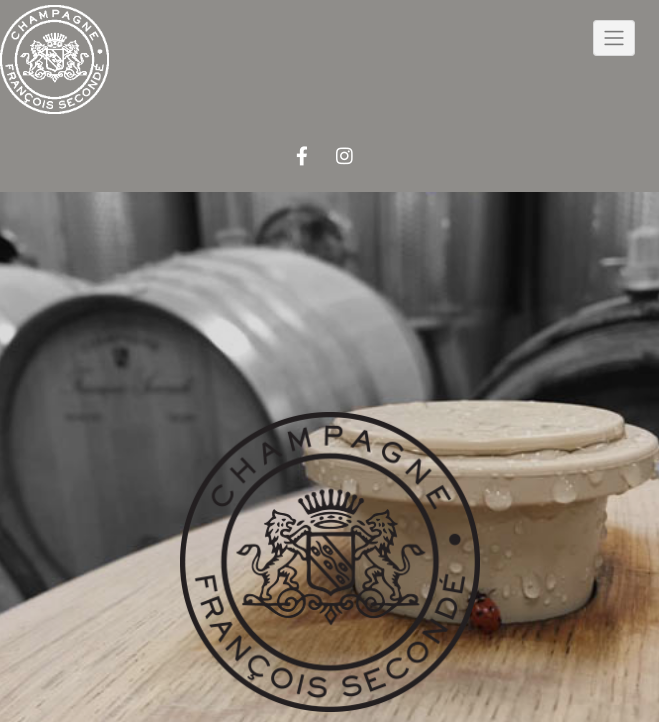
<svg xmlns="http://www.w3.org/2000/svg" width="659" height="722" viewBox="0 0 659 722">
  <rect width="100%" height="100%" fill="#8f8d8a"/>
  <image x="0" y="5" width="109" height="109" href="images/1.png"/>
  <rect x="593" y="20" width="42" height="36" rx="4" fill="#f3f3f3"/>
  <rect x="593.5" y="20.5" width="41" height="35" rx="3.5" fill="none" stroke="#0000001a"/>
  <image x="604" y="30" width="20" height="16" href="images/2.png"/>
  <image x="296" y="146" width="11" height="20" href="images/3.png"/>
  <image x="336" y="147" width="17" height="18" href="images/4.png"/>
  <image x="0" y="192" width="659" height="530" href="images/5.png"/>
  <image x="180" y="412" width="300" height="300" href="images/6.png"/>
</svg>
